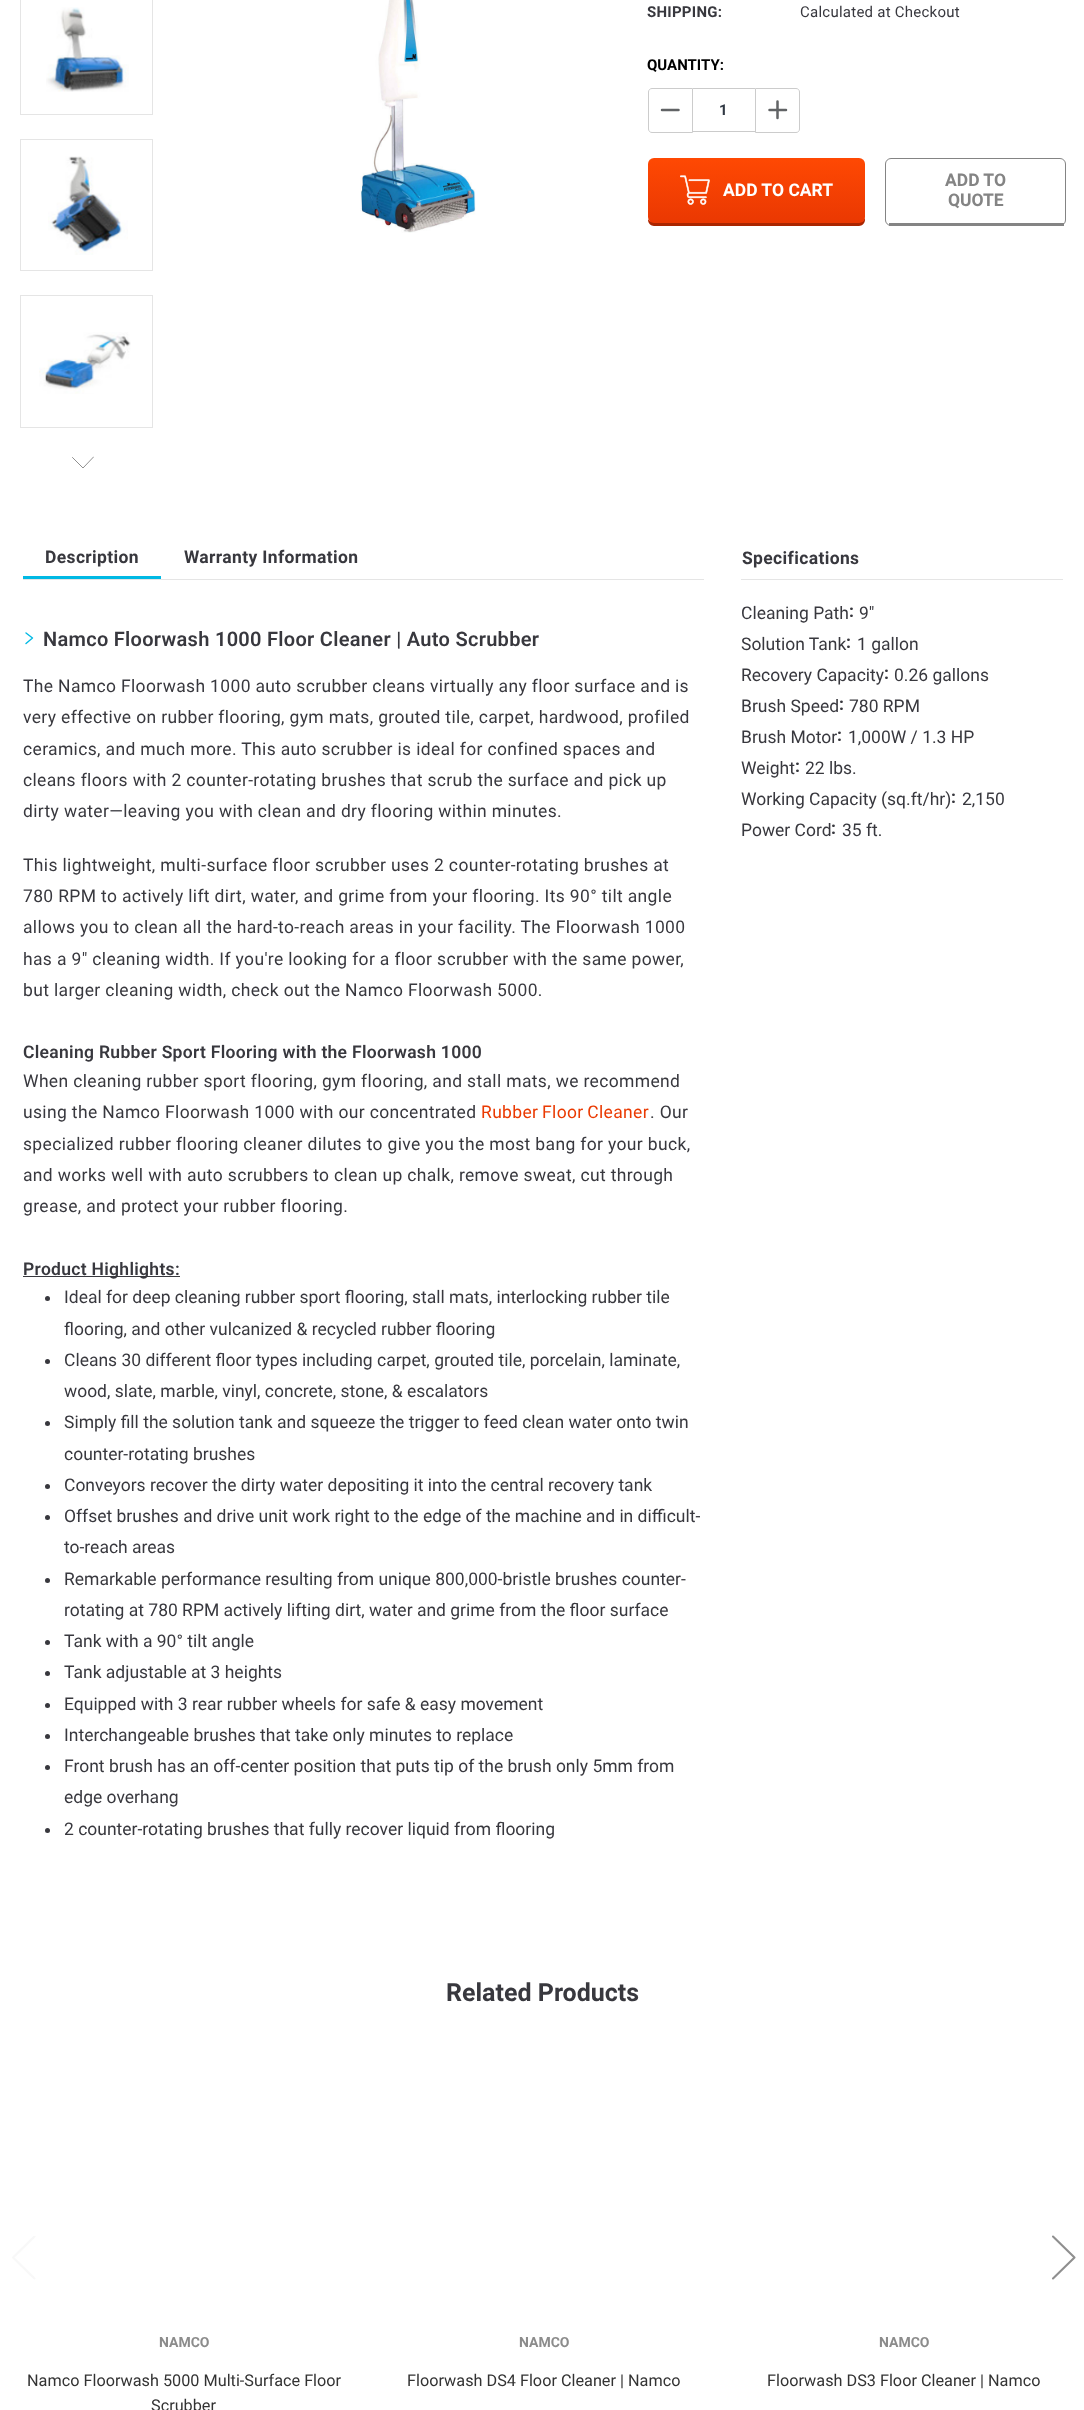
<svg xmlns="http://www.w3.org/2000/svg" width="1084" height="2410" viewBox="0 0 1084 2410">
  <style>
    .t1 { font: bold 15px Roboto; letter-spacing: 0.25px; fill: #38383e; }
    .t2 { font: 15px Roboto; letter-spacing: 0.25px; fill: #38383e; }
    .t3 { font: bold 15px Roboto; fill: #000; }
    .t4 { font: bold 15px Roboto; fill: #303843; }
    .t5 { font: bold 17.5px Roboto; fill: #fff; }
    .t6 { font: bold 17.5px Roboto; fill: #848484; }
    .t7 { font: bold 17.5px Roboto; letter-spacing: 0.35px; fill: #38383e; }
    .t8 { font: 600 20px Roboto; letter-spacing: 0.3px; fill: #38383e; }
    .t9 { font: 17.5px Roboto; letter-spacing: 0.35px; fill: #38383e; }
    .t10 { font: 600 17.5px Roboto; letter-spacing: 0.3px; fill: #38383e; }
    .t11 { font: 17.5px Roboto; letter-spacing: 0.35px; fill: #ea3a02; }
    .t12 { font: 17.5px Roboto; fill: #38383e; }
    .t13 { font: bold 17.5px Roboto; fill: #38383e; }
    .t14 { font: bold 25px Roboto; fill: #38383e; }
    .t15 { font: bold 14px Roboto; fill: #8c8c8c; }
    .t16 { font: 16.25px Roboto; fill: #333; }
  </style>
  <defs>
    <clipPath id="clip1"><path d="M94 456V468.5H72V456Z"/></clipPath>
    <linearGradient id="g1" gradientUnits="userSpaceOnUse" x1="756" y1="157" x2="756" y2="223"><stop offset="0" stop-color="#ff4903"/><stop offset="1" stop-color="#ea3802"/></linearGradient>
    <clipPath id="clip2"><rect x="11" y="2236" width="25" height="44"/></clipPath>
  </defs>
  <rect width="100%" height="100%" fill="#fff"/>
  <rect x="20.5" y="-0.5" width="132" height="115" fill="none" stroke="#e5e5e5"/>
  <image x="46" y="7" width="83" height="85" href="images/1.png"/>
  <rect x="20.5" y="139.5" width="132" height="131" fill="none" stroke="#e5e5e5"/>
  <image x="48" y="156" width="80" height="99" href="images/2.png"/>
  <rect x="20.5" y="295.5" width="132" height="132" fill="none" stroke="#e5e5e5"/>
  <image x="39" y="332" width="92" height="62" href="images/3.png"/>
  <g clip-path="url(#clip1)">
    <path d="M93.5 457L83 468L72.5 457.5" fill="none" stroke="#8f8f8f" stroke-linecap="round" stroke-linejoin="round"/>
  </g>
  <image x="360" y="0" width="116" height="233" href="images/4.png"/>
  <text x="647" y="17" class="t1">SHIPPING:</text>
  <text x="800" y="17" class="t2">Calculated at Checkout</text>
  <text x="647" y="70" class="t3">QUANTITY:</text>
  <path d="M652 88.5H692.5V132.5H652C650 132.5 648.5 131 648.5 129V92C648.5 90 650 88.5 652 88.5Z" fill="none" stroke="#ccc"/>
  <path d="M678.5 110H662" fill="none" stroke="#616365" stroke-width="2.5" stroke-linecap="round" stroke-linejoin="round"/>
  <rect x="693" y="88" width="62" height="1" fill="#cbcbcb"/>
  <rect x="693" y="131" width="62" height="1" fill="#cbcbcb"/>
  <text x="719" y="115" class="t4">1</text>
  <path d="M755.5 88.5H796C798 88.5 799.5 90 799.5 92V129C799.5 131 798 132.5 796 132.5H755.5Z" fill="none" stroke="#ccc"/>
  <path d="M777.5 101.5V118M786 110H769.5" fill="none" stroke="#616365" stroke-width="2.5" stroke-linecap="round" stroke-linejoin="round"/>
  <path d="M648 219V220C648 223 651 226 654 226H859C862 226 865 223 865 220V216C865 220 862 222 859 222H654C651 222 649 221 648 219Z" fill="#aa2500"/>
  <rect x="648" y="158" width="217" height="65" rx="6" fill="url(#g1)"/>
  <image x="680" y="175" width="30" height="30" href="images/5.png"/>
  <text x="723" y="196" class="t5">ADD TO CART</text>
  <rect x="885.5" y="158.5" width="180" height="67" rx="5.5" fill="none" stroke="#848484"/>
  <rect x="889" y="223" width="175" height="3" fill="#848484"/>
  <text x="945" y="186" class="t6">ADD TO</text>
  <text x="948" y="206" class="t6">QUOTE</text>
  <rect x="23" y="579" width="681" height="1" fill="#e5e5e5"/>
  <rect x="23" y="576" width="138" height="3" fill="#00b9e4"/>
  <text x="45" y="563" class="t7">Description</text>
  <text x="184" y="563" class="t7">Warranty Information</text>
  <path d="M26 643.5L32.5 638L26 633" fill="none" stroke="#00b9e4" stroke-width="1.4" stroke-linecap="round" stroke-linejoin="round"/>
  <text x="43" y="646" class="t8">Namco Floorwash 1000 Floor Cleaner | Auto Scrubber</text>
  <text x="23" y="692" class="t9">The Namco Floorwash 1000 auto scrubber cleans virtually any floor surface and is</text>
  <text x="23" y="723" class="t9">very effective on rubber flooring, gym mats, grouted tile, carpet, hardwood, profiled</text>
  <text x="23" y="755" class="t9">ceramics, and much more. This auto scrubber is ideal for confined spaces and</text>
  <text x="23" y="786" class="t9">cleans floors with 2 counter-rotating brushes that scrub the surface and pick up</text>
  <text x="23" y="817" class="t9">dirty water—leaving you with clean and dry flooring within minutes.</text>
  <text x="23" y="871" class="t9">This lightweight, multi-surface floor scrubber uses 2 counter-rotating brushes at</text>
  <text x="23" y="902" class="t9">780 RPM to actively lift dirt, water, and grime from your flooring. Its 90° tilt angle</text>
  <text x="23" y="933" class="t9">allows you to clean all the hard-to-reach areas in your facility. The Floorwash 1000</text>
  <text x="23" y="965" class="t9">has a 9" cleaning width. If you're looking for a floor scrubber with the same power,</text>
  <text x="23" y="996" class="t9">but larger cleaning width, check out the Namco Floorwash 5000.</text>
  <text x="23" y="1058" class="t10">Cleaning Rubber Sport Flooring with the Floorwash 1000</text>
  <text x="23" y="1087" class="t9">When cleaning rubber sport flooring, gym flooring, and stall mats, we recommend</text>
  <text x="23" y="1118" class="t9">using the Namco Floorwash 1000 with our concentrated</text>
  <text x="481" y="1118" word-spacing="-1" class="t11">Rubber Floor Cleaner</text>
  <text x="650" y="1118" class="t9">. Our</text>
  <text x="23" y="1150" class="t9">specialized rubber flooring cleaner dilutes to give you the most bang for your buck,</text>
  <text x="23" y="1181" class="t9">and works well with auto scrubbers to clean up chalk, remove sweat, cut through</text>
  <text x="23" y="1212" class="t9">grease, and protect your rubber flooring.</text>
  <rect x="23" y="1276" width="157" height="1" fill="#38383e"/>
  <text x="23" y="1275" class="t10">Product Highlights:</text>
  <circle cx="47.5" cy="1298.5" r="2.5" fill="#38383e"/>
  <text x="64" y="1303" class="t12">Ideal for deep cleaning rubber sport flooring, stall mats, interlocking rubber tile</text>
  <text x="64" y="1335" class="t12">flooring, and other vulcanized &amp; recycled rubber flooring</text>
  <circle cx="47.5" cy="1361.5" r="2.5" fill="#38383e"/>
  <text x="64" y="1366" class="t12">Cleans 30 different floor types including carpet, grouted tile, porcelain, laminate,</text>
  <text x="64" y="1397" class="t12">wood, slate, marble, vinyl, concrete, stone, &amp; escalators</text>
  <circle cx="47.5" cy="1423.5" r="2.5" fill="#38383e"/>
  <text x="64" y="1428" class="t12">Simply fill the solution tank and squeeze the trigger to feed clean water onto twin</text>
  <text x="64" y="1460" class="t12">counter-rotating brushes</text>
  <circle cx="47.5" cy="1486.5" r="2.5" fill="#38383e"/>
  <text x="64" y="1491" class="t12">Conveyors recover the dirty water depositing it into the central recovery tank</text>
  <circle cx="47.5" cy="1517.5" r="2.5" fill="#38383e"/>
  <text x="64" y="1522" class="t12">Offset brushes and drive unit work right to the edge of the machine and in difficult-</text>
  <text x="64" y="1553" class="t12">to-reach areas</text>
  <circle cx="47.5" cy="1580.5" r="2.5" fill="#38383e"/>
  <text x="64" y="1585" class="t12">Remarkable performance resulting from unique 800,000-bristle brushes counter-</text>
  <text x="64" y="1616" class="t12">rotating at 780 RPM actively lifting dirt, water and grime from the floor surface</text>
  <circle cx="47.5" cy="1642.5" r="2.5" fill="#38383e"/>
  <text x="64" y="1647" class="t12">Tank with a 90° tilt angle</text>
  <circle cx="47.5" cy="1673.5" r="2.5" fill="#38383e"/>
  <text x="64" y="1678" class="t12">Tank adjustable at 3 heights</text>
  <circle cx="47.5" cy="1705.5" r="2.5" fill="#38383e"/>
  <text x="64" y="1710" class="t12">Equipped with 3 rear rubber wheels for safe &amp; easy movement</text>
  <circle cx="47.5" cy="1736.5" r="2.5" fill="#38383e"/>
  <text x="64" y="1741" class="t12">Interchangeable brushes that take only minutes to replace</text>
  <circle cx="47.5" cy="1767.5" r="2.5" fill="#38383e"/>
  <text x="64" y="1772" class="t12">Front brush has an off-center position that puts tip of the brush only 5mm from</text>
  <text x="64" y="1803" class="t12">edge overhang</text>
  <circle cx="47.5" cy="1830.5" r="2.5" fill="#38383e"/>
  <text x="64" y="1835" class="t12">2 counter-rotating brushes that fully recover liquid from flooring</text>
  <rect x="741" y="579" width="322" height="1" fill="#e5e5e5"/>
  <text x="742" y="564" class="t7">Specifications</text>
  <text x="741" y="619" class="t12">Cleaning Path</text>
  <text x="849" y="617" class="t13">:</text>
  <text x="859" y="619" class="t12">9"</text>
  <text x="741" y="650" class="t12">Solution Tank</text>
  <text x="846" y="648" class="t13">:</text>
  <text x="857" y="650" class="t12">1 gallon</text>
  <text x="741" y="681" class="t12">Recovery Capacity</text>
  <text x="884" y="679" class="t13">:</text>
  <text x="894" y="681" class="t12">0.26 gallons</text>
  <text x="741" y="712" class="t12">Brush Speed</text>
  <text x="839" y="710" class="t13">:</text>
  <text x="849" y="712" class="t12">780 RPM</text>
  <text x="741" y="743" class="t12">Brush Motor</text>
  <text x="837" y="741" class="t13">:</text>
  <text x="848" y="743" class="t12">1,000W / 1.3 HP</text>
  <text x="741" y="774" class="t12">Weight</text>
  <text x="795" y="772" class="t13">:</text>
  <text x="805" y="774" class="t12">22 lbs.</text>
  <text x="741" y="805" class="t12">Working Capacity (sq.ft/hr)</text>
  <text x="951" y="803" class="t13">:</text>
  <text x="962" y="805" class="t12">2,150</text>
  <text x="741" y="836" class="t12">Power Cord</text>
  <text x="831" y="834" class="t13">:</text>
  <text x="842" y="836" class="t12">35 ft.</text>
  <text x="446" y="2001" class="t14">Related Products</text>
  <g clip-path="url(#clip2)">
    <path d="M34.5 2236.5L13 2257.5L34.5 2278.5" fill="none" stroke="#f8f8f8" stroke-width="2.1" stroke-linecap="round" stroke-linejoin="round"/>
  </g>
  <path d="M1053 2236.5L1074.5 2257.5L1053 2278.5" fill="none" stroke="#8f8f8f" stroke-width="2.1" stroke-linecap="round" stroke-linejoin="round"/>
  <text x="159" y="2347" class="t15">NAMCO</text>
  <text x="27" y="2386" class="t16">Namco Floorwash 5000 Multi-Surface Floor</text>
  <text x="151" y="2411" class="t16">Scrubber</text>
  <text x="519" y="2347" class="t15">NAMCO</text>
  <text x="407" y="2386" class="t16">Floorwash DS4 Floor Cleaner | Namco</text>
  <text x="879" y="2347" class="t15">NAMCO</text>
  <text x="767" y="2386" class="t16">Floorwash DS3 Floor Cleaner | Namco</text>
</svg>
